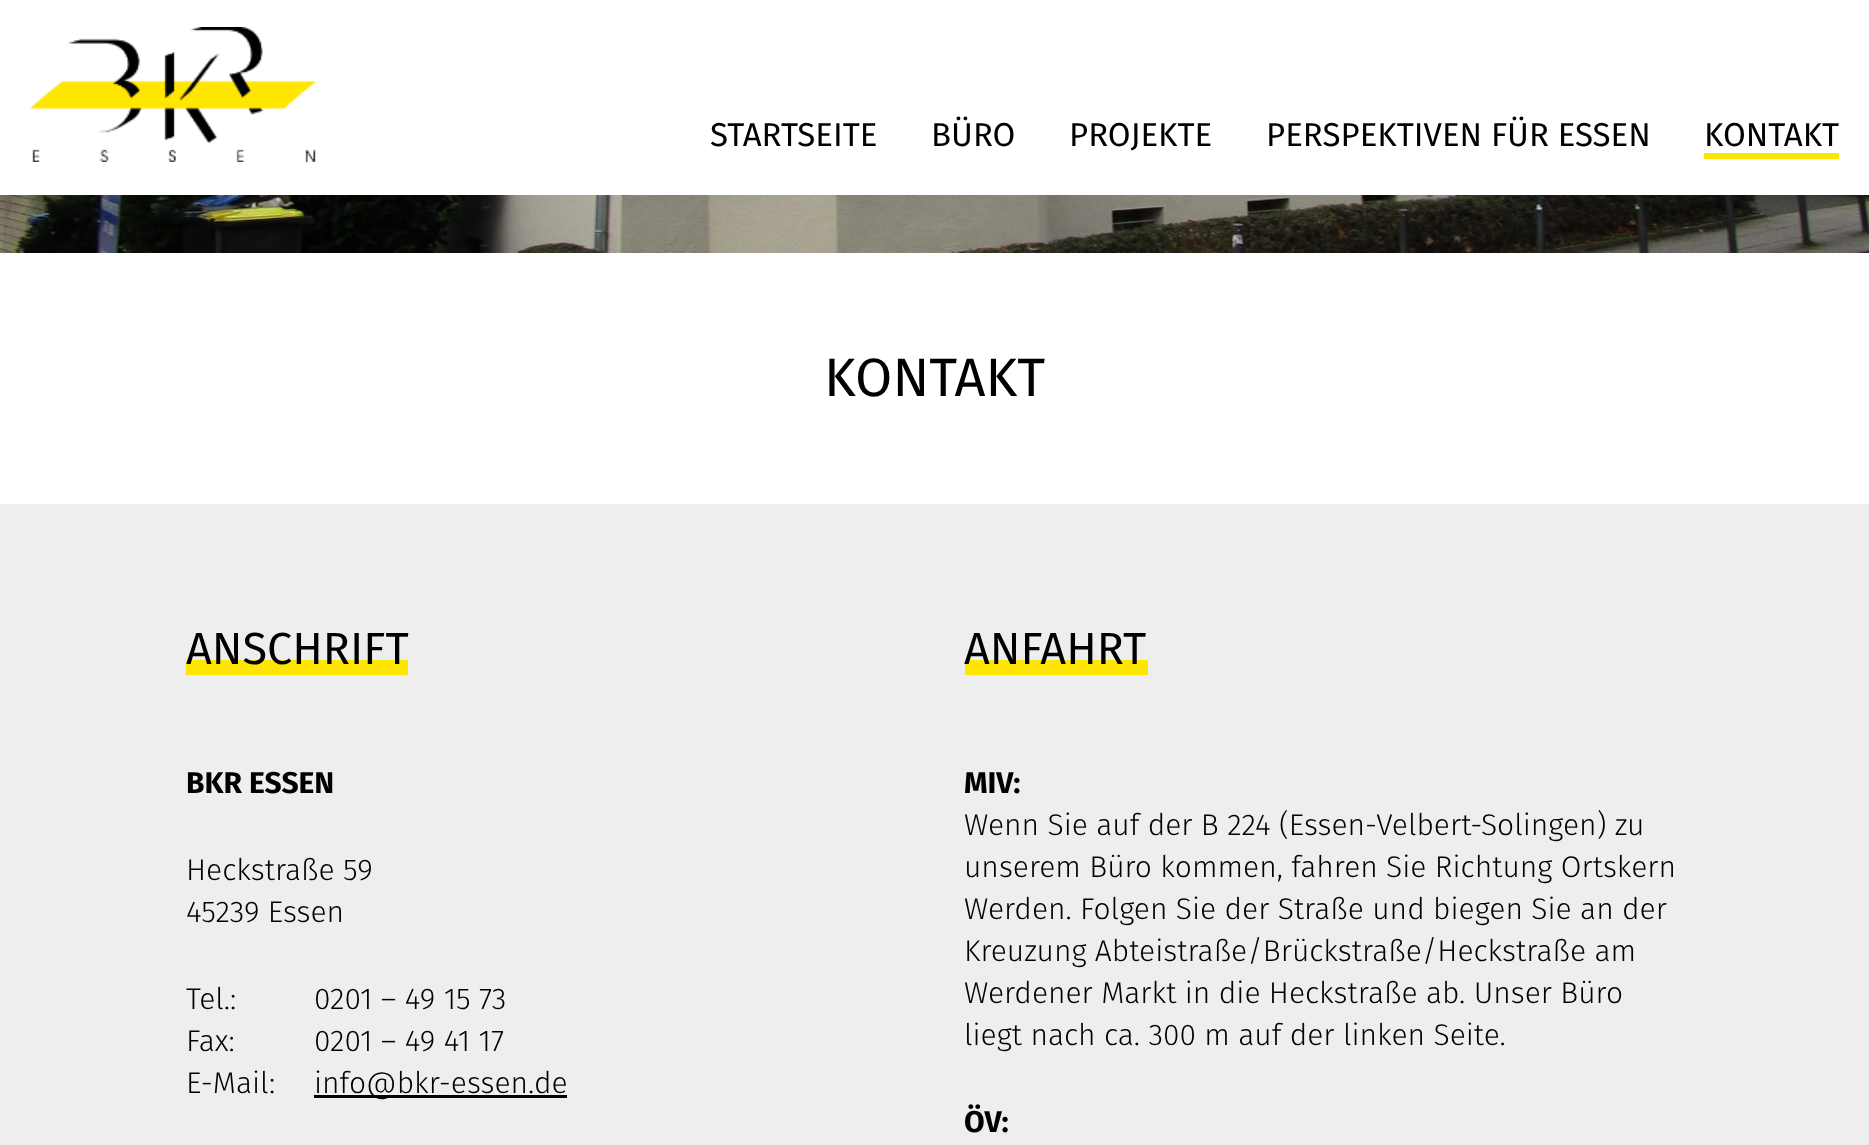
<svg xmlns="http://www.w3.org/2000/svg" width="1869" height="1145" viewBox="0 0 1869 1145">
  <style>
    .t1 { font: 33px Fira Sans; fill: #000; }
    .t2 { font: 54px Fira Sans; fill: #000; }
    .t3 { font: 45px Fira Sans; fill: #000; }
    .t4 { font: bold 30px Fira Sans; fill: #000; }
    .t5 { font: 300 30px Fira Sans; fill: #000; }
  </style>
  <rect width="100%" height="100%" fill="#fff"/>
  <image x="30" y="27" width="286" height="135" href="images/1.png"/>
  <text x="710" y="146" class="t1">STARTSEITE</text>
  <text x="931" y="146" class="t1">BÜRO</text>
  <text x="1069" y="146" class="t1">PROJEKTE</text>
  <text x="1266" y="146" class="t1">PERSPEKTIVEN FÜR ESSEN</text>
  <text x="1704" y="146" class="t1">KONTAKT</text>
  <rect x="1704" y="153" width="135" height="6" fill="#fee600"/>
  <image x="0" y="195" width="1869" height="58" href="images/2.png"/>
  <rect x="0" y="504" width="1869" height="641" fill="#eee"/>
  <text x="824" y="396" class="t2">KONTAKT</text>
  <rect x="186" y="660" width="222" height="15" fill="#fee600"/>
  <text x="186" y="664" class="t3">ANSCHRIFT</text>
  <text x="186" y="793" class="t4">BKR ESSEN</text>
  <text x="186" y="880" class="t5">Heckstraße 59</text>
  <text x="186" y="922" class="t5">45239 Essen</text>
  <text x="186" y="1009" class="t5">Tel.:</text>
  <text x="314" y="1009" class="t5">0201 – 49 15 73</text>
  <text x="186" y="1051" class="t5">Fax:</text>
  <text x="314" y="1051" class="t5">0201 – 49 41 17</text>
  <text x="186" y="1093" class="t5">E-Mail:</text>
  <rect x="314" y="1095" width="253" height="3" fill="#000"/>
  <text x="314" y="1093" class="t5">info@bkr-essen.de</text>
  <rect x="965" y="660" width="183" height="15" fill="#fee600"/>
  <text x="964" y="664" class="t3">ANFAHRT</text>
  <text x="964" y="793" class="t4">MIV:</text>
  <text x="964" y="835" class="t5">Wenn Sie auf der B 224 (Essen-Velbert-Solingen) zu</text>
  <text x="964" y="877" class="t5">unserem Büro kommen, fahren Sie Richtung Ortskern</text>
  <text x="964" y="919" class="t5">Werden. Folgen Sie der Straße und biegen Sie an der</text>
  <text x="964" y="961" class="t5">Kreuzung Abteistraße/Brückstraße/Heckstraße am</text>
  <text x="964" y="1003" class="t5">Werdener Markt in die Heckstraße ab. Unser Büro</text>
  <text x="964" y="1045" class="t5">liegt nach ca. 300 m auf der linken Seite.</text>
  <text x="964" y="1132" class="t4">ÖV:</text>
</svg>
